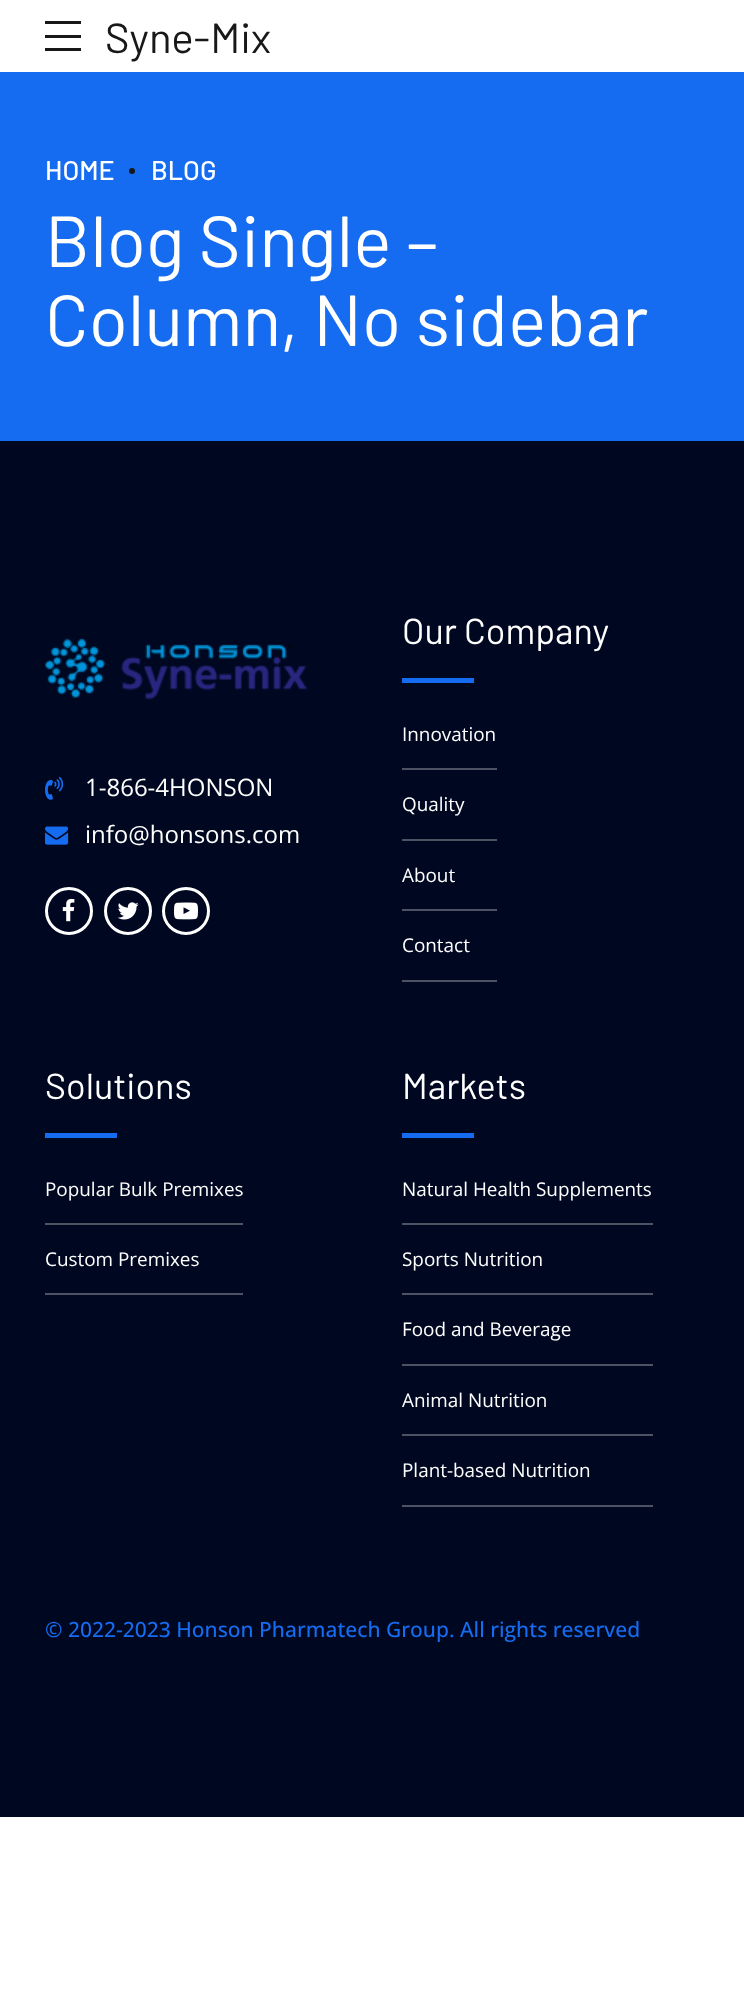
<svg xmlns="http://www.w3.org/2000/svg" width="744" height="2008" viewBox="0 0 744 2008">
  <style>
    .t1 { font: 42px Barlow; fill: #181818; }
    .t2 { font: 500 27px Barlow; fill: #fff; }
    .t3 { font: 72px Barlow; fill: #fff; }
    .t4 { font: 24px Open Sans; fill: #fff; }
    .t5 { font: 36px Barlow; fill: #fff; }
    .t6 { font: 18.9px Open Sans; fill: #fff; }
    .t7 { font: 500 21px Open Sans; fill: #156cf0; }
  </style>
  <rect width="100%" height="100%" fill="#fff"/>
  <rect x="45" y="21" width="36" height="3" fill="#181818"/>
  <rect x="45" y="35" width="36" height="3" fill="#181818"/>
  <rect x="45" y="48" width="36" height="3" fill="#181818"/>
  <text x="105" y="53" class="t1">Syne-Mix</text>
  <rect x="0" y="72" width="744" height="369" fill="#156cf0"/>
  <text x="45" y="180" class="t2">HOME</text>
  <circle cx="132" cy="171" r="3" fill="#181818"/>
  <text x="151" y="180" class="t2">BLOG</text>
  <text x="45" y="267" class="t3">Blog Single –</text>
  <text x="45" y="346" class="t3">Column, No sidebar</text>
  <rect x="0" y="441" width="744" height="1376" fill="#000821"/>
  <image x="45" y="638" width="263" height="62" href="images/1.png"/>
  <image x="45" y="776" width="19" height="24" href="images/2.png"/>
  <text x="85" y="796" class="t4">1-866-4HONSON</text>
  <image x="45" y="826" width="24" height="19" href="images/3.png"/>
  <text x="85" y="843" class="t4">info@honsons.com</text>
  <circle cx="69" cy="911" r="22.5" fill="none" stroke="#fff" stroke-width="3"/>
  <image x="62" y="898" width="13" height="24" href="images/4.png"/>
  <circle cx="128" cy="911" r="22.5" fill="none" stroke="#fff" stroke-width="3"/>
  <image x="117" y="902" width="22" height="18" href="images/5.png"/>
  <circle cx="186" cy="911" r="22.5" fill="none" stroke="#fff" stroke-width="3"/>
  <image x="174" y="902" width="24" height="18" href="images/6.png"/>
  <text x="402" y="644" class="t5">Our Company</text>
  <rect x="402" y="678" width="72" height="5" fill="#156cf0"/>
  <rect x="402" y="768" width="95" height="2" fill="#4d5264"/>
  <text x="402" y="741" class="t6">Innovation</text>
  <rect x="402" y="839" width="95" height="2" fill="#4d5264"/>
  <text x="402" y="811" class="t6">Quality</text>
  <rect x="402" y="909" width="95" height="2" fill="#4d5264"/>
  <text x="402" y="882" class="t6">About</text>
  <rect x="402" y="980" width="95" height="2" fill="#4d5264"/>
  <text x="402" y="952" class="t6">Contact</text>
  <text x="45" y="1099" class="t5">Solutions</text>
  <rect x="45" y="1133" width="72" height="5" fill="#156cf0"/>
  <rect x="45" y="1223" width="198" height="2" fill="#4d5264"/>
  <text x="45" y="1196" class="t6">Popular Bulk Premixes</text>
  <rect x="45" y="1293" width="198" height="2" fill="#4d5264"/>
  <text x="45" y="1266" class="t6">Custom Premixes</text>
  <text x="402" y="1099" class="t5">Markets</text>
  <rect x="402" y="1133" width="72" height="5" fill="#156cf0"/>
  <rect x="402" y="1223" width="251" height="2" fill="#4d5264"/>
  <text x="402" y="1196" class="t6">Natural Health Supplements</text>
  <rect x="402" y="1293" width="251" height="2" fill="#4d5264"/>
  <text x="402" y="1266" class="t6">Sports Nutrition</text>
  <rect x="402" y="1364" width="251" height="2" fill="#4d5264"/>
  <text x="402" y="1336" class="t6">Food and Beverage</text>
  <rect x="402" y="1434" width="251" height="2" fill="#4d5264"/>
  <text x="402" y="1407" class="t6">Animal Nutrition</text>
  <rect x="402" y="1505" width="251" height="2" fill="#4d5264"/>
  <text x="402" y="1477" class="t6">Plant-based Nutrition</text>
  <text x="45" y="1637" class="t7">© 2022-2023 Honson Pharmatech Group. All rights reserved</text>
</svg>
